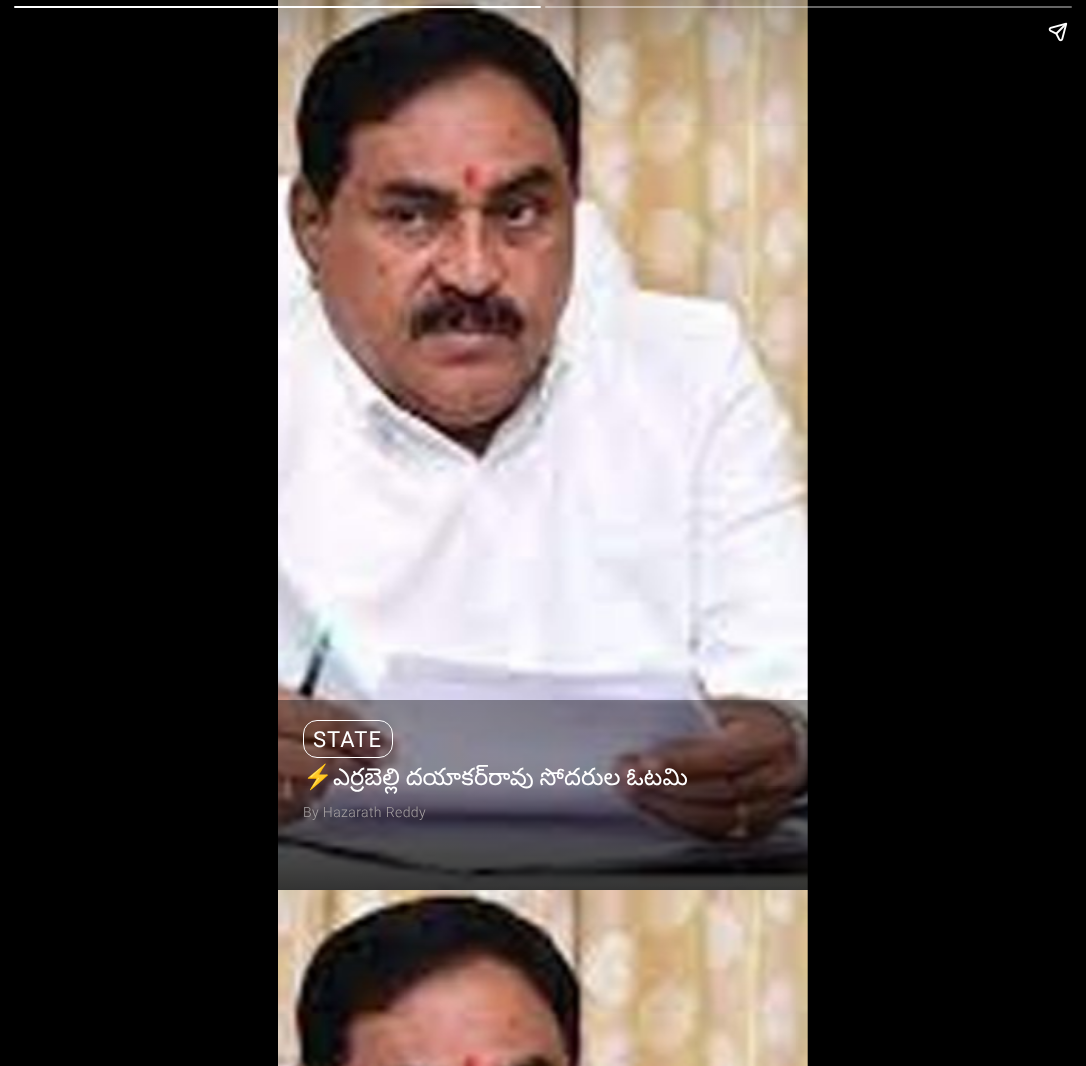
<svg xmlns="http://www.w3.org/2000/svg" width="1086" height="1066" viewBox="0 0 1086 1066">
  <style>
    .t1 { font: 22px Roboto; letter-spacing: 1px; fill: #fff; }
    .t2 { font: bold 24px Noto Color Emoji; fill: #fff; }
    .t3 { font: 24px Noto Sans Telugu; fill: #fff; }
    .t4 { font: 300 14px Roboto; letter-spacing: 0.4px; fill: #a7a2a2; }
  </style>
  <defs>
    <linearGradient id="g1" gradientUnits="userSpaceOnUse" x1="543" y1="0" x2="543" y2="140"><stop offset="0" stop-color="#000" stop-opacity="0.27"/><stop offset="0.33" stop-color="#000" stop-opacity="0.13"/><stop offset="0.67" stop-color="#000" stop-opacity="0.07"/><stop offset="1" stop-color="#000" stop-opacity="0"/></linearGradient>
    <linearGradient id="g2" gradientUnits="userSpaceOnUse" x1="543" y1="700" x2="543" y2="890"><stop offset="0.4" stop-color="#000" stop-opacity="0.4"/><stop offset="0.6" stop-color="#000" stop-opacity="0.6"/><stop offset="1" stop-color="#000" stop-opacity="0.8"/></linearGradient>
  </defs>
  <rect width="100%" height="100%" fill="#000"/>
  <image x="278" y="0" width="530" height="890" href="images/2.png"/>
  <rect x="278" y="0" width="530" height="126" fill="url(#g1)"/>
  <rect x="14" y="6" width="527" height="2" rx="1" fill="#fff"/>
  <rect x="545" y="6" width="527" height="2" rx="1" fill="#ffffff66"/>
  <image x="1048" y="22" width="20" height="20" href="images/1.png"/>
  <rect x="278" y="700" width="530" height="190" fill="url(#g2)"/>
  <rect x="303.5" y="720.5" width="89" height="37" rx="13.5" fill="none" stroke="#fff"/>
  <text x="313" y="747" class="t1">STATE</text>
  <text x="303" y="785" class="t2">⚡</text>
  <text x="333" y="785" word-spacing="-1" class="t3">ఎర్రబెల్లి దయాకర్‌రావు సోదరుల ఓటమి</text>
  <text x="303" y="817" class="t4">By Hazarath Reddy</text>
  <image x="278" y="890" width="530" height="176" href="images/3.png"/>
</svg>
